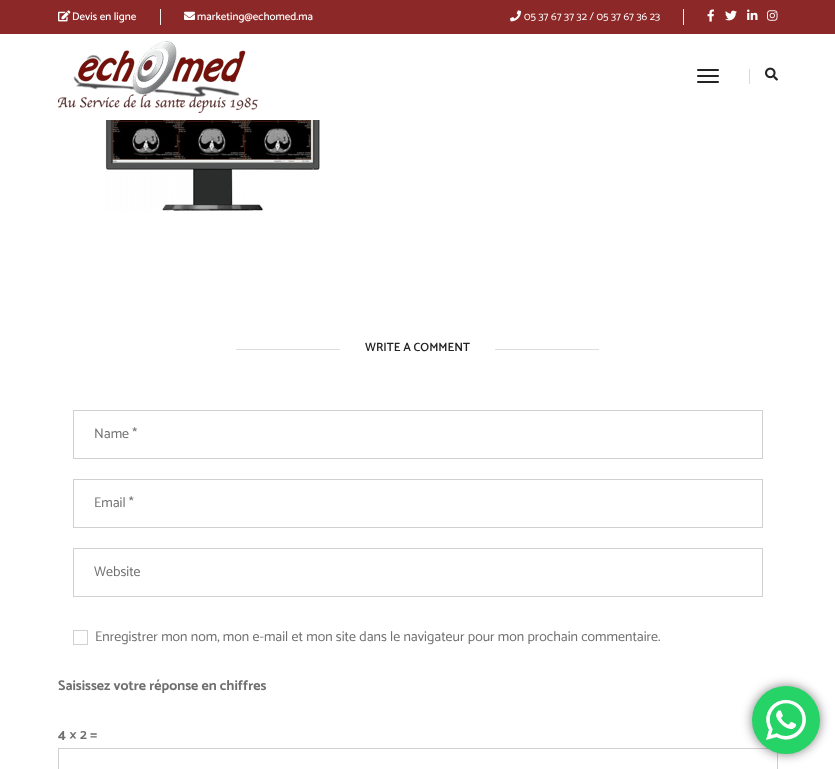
<svg xmlns="http://www.w3.org/2000/svg" width="835" height="769" viewBox="0 0 835 769">
  <style>
    .t1 { font: 500 11px Catamaran; fill: #fff; }
    .t2 { font: 11px Catamaran; fill: #fff; }
    .t3 { font: 600 12px Catamaran; fill: #232323; }
    .t4 { font: 14px Catamaran; fill: #6f6f6f; }
    .t5 { font: bold 14px Catamaran; fill: #6f6f6f; }
  </style>
  <rect width="100%" height="100%" fill="#fff"/>
  <rect x="0" y="0" width="835" height="34" fill="#8c2828"/>
  <rect x="160" y="9" width="1" height="16" fill="#efefef"/>
  <image x="58" y="10" width="13" height="12" href="images/1.png"/>
  <text x="72" y="20" class="t1">Devis en ligne</text>
  <image x="184" y="11" width="11" height="9" href="images/2.png"/>
  <text x="197" y="20" class="t1">marketing@echomed.ma</text>
  <image x="510" y="10" width="11" height="12" href="images/3.png"/>
  <text x="524" y="20" class="t2">05 37 67 37 32 / 05 37 67 36 23</text>
  <rect x="683" y="9" width="1" height="16" fill="#efefef"/>
  <image x="707" y="9" width="7" height="13" href="images/4.png"/>
  <image x="725" y="10" width="12" height="11" href="images/5.png"/>
  <image x="747" y="9" width="11" height="11" href="images/6.png"/>
  <image x="767" y="10" width="11" height="11" href="images/7.png"/>
  <image x="58" y="41" width="200" height="72" href="images/8.png"/>
  <rect x="697" y="69" width="22" height="2" rx="1" fill="#232323"/>
  <rect x="697" y="75" width="22" height="2" rx="1" fill="#232323"/>
  <rect x="697" y="81" width="22" height="2" rx="1" fill="#232323"/>
  <rect x="749" y="69" width="1" height="15" fill="#d9d9d9"/>
  <image x="765" y="67" width="13" height="14" href="images/9.png"/>
  <image x="105" y="120" width="215" height="91" href="images/10.png"/>
  <rect x="236" y="349" width="104" height="1" fill="#dedede"/>
  <text x="365" y="351" class="t3">WRITE A COMMENT</text>
  <rect x="495" y="349" width="104" height="1" fill="#dedede"/>
  <rect x="73.5" y="410.5" width="689" height="48" fill="none" stroke="#d1d1d1"/>
  <text x="94" y="438" class="t4">Name *</text>
  <rect x="73.5" y="479.5" width="689" height="48" fill="none" stroke="#d1d1d1"/>
  <text x="94" y="507" class="t4">Email *</text>
  <rect x="73.5" y="548.5" width="689" height="48" fill="none" stroke="#d1d1d1"/>
  <text x="94" y="576" class="t4">Website</text>
  <rect x="73.5" y="630.5" width="14" height="14" fill="none" stroke="#d1d1d1"/>
  <text x="95" y="641" class="t4">Enregistrer mon nom, mon e-mail et mon site dans le navigateur pour mon prochain commentaire.</text>
  <text x="58" y="690" class="t5">Saisissez votre réponse en chiffres</text>
  <text x="58" y="739" class="t5">4 × 2 =</text>
  <rect x="58.5" y="748.5" width="719" height="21" fill="none" stroke="#d1d1d1"/>
  <rect x="752" y="686" width="68" height="68" rx="34" fill="#00000080" filter="blur(5.5px)"/>
  <circle cx="786" cy="720" r="34" fill="#25d366"/>
  <image x="766" y="700" width="40" height="40" href="images/11.png"/>
</svg>
